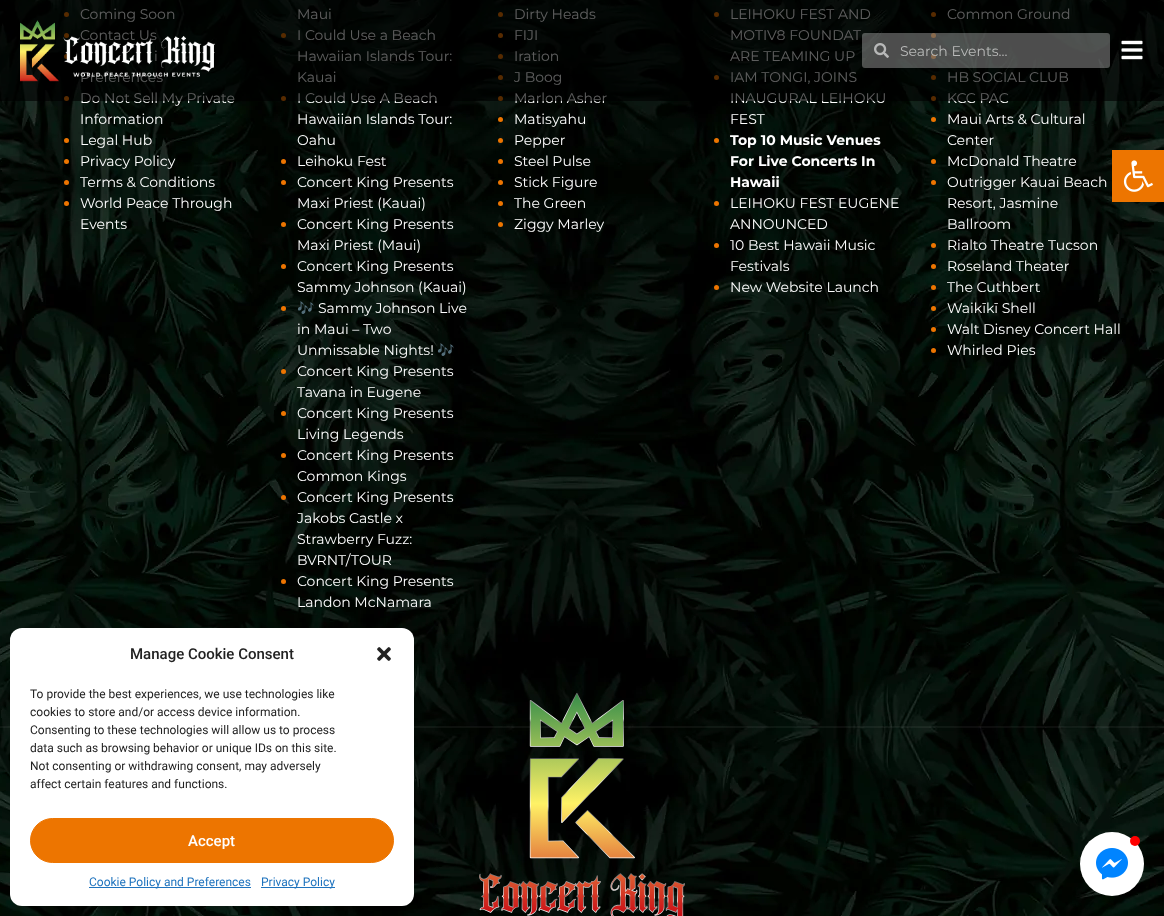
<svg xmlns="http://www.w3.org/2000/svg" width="1164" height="916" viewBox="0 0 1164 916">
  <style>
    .t1 { font: 14px Montserrat; fill: #fff; }
    .t2 { font: 14px Noto Color Emoji; fill: #fff; }
    .t3 { font: bold 14px Montserrat; fill: #fff; }
    .t4 { font: 14px Montserrat; fill: #b9bab9; }
    .t5 { font: 500 15px Roboto; fill: #222; }
    .t6 { font: 12px Roboto; fill: #222; }
    .t7 { font: 500 15px Roboto; fill: #fff; }
    .t8 { font: 12px Roboto; fill: #1e73be; }
  </style>
  <rect width="100%" height="100%" fill="#fff"/>
  <image x="0" y="0" width="1164" height="916" href="images/1.png"/>
  <circle cx="66.5" cy="14.5" r="2.5" fill="#ed7500"/>
  <text x="80" y="19" class="t1">Coming Soon</text>
  <circle cx="66.5" cy="35.5" r="2.5" fill="#ed7500"/>
  <text x="80" y="40" class="t1">Contact Us</text>
  <circle cx="66.5" cy="56.5" r="2.5" fill="#ed7500"/>
  <text x="154" y="61" class="t1">i</text>
  <text x="80" y="82" class="t1">Preferences</text>
  <circle cx="66.5" cy="98.5" r="2.5" fill="#ed7500"/>
  <text x="80" y="103" class="t1">Do Not Sell My Private</text>
  <text x="80" y="124" class="t1">Information</text>
  <circle cx="66.5" cy="140.5" r="2.5" fill="#ed7500"/>
  <text x="80" y="145" class="t1">Legal Hub</text>
  <circle cx="66.5" cy="161.5" r="2.5" fill="#ed7500"/>
  <text x="80" y="166" class="t1">Privacy Policy</text>
  <circle cx="66.5" cy="182.5" r="2.5" fill="#ed7500"/>
  <text x="80" y="187" class="t1">Terms &amp; Conditions</text>
  <circle cx="66.5" cy="203.5" r="2.5" fill="#ed7500"/>
  <text x="80" y="208" class="t1">World Peace Through</text>
  <text x="80" y="229" class="t1">Events</text>
  <text x="297" y="19" class="t1">Maui</text>
  <circle cx="283.5" cy="35.5" r="2.5" fill="#ed7500"/>
  <text x="297" y="40" class="t1">I Could Use a Beach</text>
  <text x="297" y="61" class="t1">Hawaiian Islands Tour:</text>
  <text x="297" y="82" class="t1">Kauai</text>
  <circle cx="283.5" cy="98.5" r="2.5" fill="#ed7500"/>
  <text x="297" y="103" class="t1">I Could Use A Beach</text>
  <text x="297" y="124" class="t1">Hawaiian Islands Tour:</text>
  <text x="297" y="145" class="t1">Oahu</text>
  <circle cx="283.5" cy="161.5" r="2.5" fill="#ed7500"/>
  <text x="297" y="166" class="t1">Leihoku Fest</text>
  <circle cx="283.5" cy="182.5" r="2.5" fill="#ed7500"/>
  <text x="297" y="187" class="t1">Concert King Presents</text>
  <text x="297" y="208" class="t1">Maxi Priest (Kauai)</text>
  <circle cx="283.5" cy="224.5" r="2.5" fill="#ed7500"/>
  <text x="297" y="229" class="t1">Concert King Presents</text>
  <text x="297" y="250" class="t1">Maxi Priest (Maui)</text>
  <circle cx="283.5" cy="266.5" r="2.5" fill="#ed7500"/>
  <text x="297" y="271" class="t1">Concert King Presents</text>
  <text x="297" y="292" class="t1">Sammy Johnson (Kauai)</text>
  <circle cx="283.5" cy="308.5" r="2.5" fill="#ed7500"/>
  <text x="297" y="313" class="t2">🎶</text>
  <text x="318" y="313" class="t1">Sammy Johnson Live</text>
  <text x="297" y="334" class="t1">in Maui – Two</text>
  <text x="297" y="355" class="t1">Unmissable Nights!</text>
  <text x="437" y="355" class="t2">🎶</text>
  <circle cx="283.5" cy="371.5" r="2.5" fill="#ed7500"/>
  <text x="297" y="376" class="t1">Concert King Presents</text>
  <text x="297" y="397" class="t1">Tavana in Eugene</text>
  <circle cx="283.5" cy="413.5" r="2.5" fill="#ed7500"/>
  <text x="297" y="418" class="t1">Concert King Presents</text>
  <text x="297" y="439" class="t1">Living Legends</text>
  <circle cx="283.5" cy="455.5" r="2.5" fill="#ed7500"/>
  <text x="297" y="460" class="t1">Concert King Presents</text>
  <text x="297" y="481" class="t1">Common Kings</text>
  <circle cx="283.5" cy="497.5" r="2.5" fill="#ed7500"/>
  <text x="297" y="502" class="t1">Concert King Presents</text>
  <text x="297" y="523" class="t1">Jakobs Castle x</text>
  <text x="297" y="544" class="t1">Strawberry Fuzz:</text>
  <text x="297" y="565" class="t1">BVRNT/TOUR</text>
  <circle cx="283.5" cy="581.5" r="2.5" fill="#ed7500"/>
  <text x="297" y="586" class="t1">Concert King Presents</text>
  <text x="297" y="607" class="t1">Landon McNamara</text>
  <circle cx="500.5" cy="14.5" r="2.5" fill="#ed7500"/>
  <text x="514" y="19" class="t1">Dirty Heads</text>
  <circle cx="500.5" cy="35.5" r="2.5" fill="#ed7500"/>
  <text x="514" y="40" class="t1">FIJI</text>
  <circle cx="500.5" cy="56.5" r="2.5" fill="#ed7500"/>
  <text x="514" y="61" class="t1">Iration</text>
  <circle cx="500.5" cy="77.5" r="2.5" fill="#ed7500"/>
  <text x="514" y="82" class="t1">J Boog</text>
  <circle cx="500.5" cy="98.5" r="2.5" fill="#ed7500"/>
  <text x="514" y="103" class="t1">Marlon Asher</text>
  <circle cx="500.5" cy="119.5" r="2.5" fill="#ed7500"/>
  <text x="514" y="124" class="t1">Matisyahu</text>
  <circle cx="500.5" cy="140.5" r="2.5" fill="#ed7500"/>
  <text x="514" y="145" class="t1">Pepper</text>
  <circle cx="500.5" cy="161.5" r="2.5" fill="#ed7500"/>
  <text x="514" y="166" class="t1">Steel Pulse</text>
  <circle cx="500.5" cy="182.5" r="2.5" fill="#ed7500"/>
  <text x="514" y="187" class="t1">Stick Figure</text>
  <circle cx="500.5" cy="203.5" r="2.5" fill="#ed7500"/>
  <text x="514" y="208" class="t1">The Green</text>
  <circle cx="500.5" cy="224.5" r="2.5" fill="#ed7500"/>
  <text x="514" y="229" class="t1">Ziggy Marley</text>
  <circle cx="716.5" cy="14.5" r="2.5" fill="#ed7500"/>
  <text x="730" y="19" class="t1">LEIHOKU FEST AND</text>
  <text x="730" y="40" class="t1">MOTIV8 FOUNDAT</text>
  <text x="730" y="61" class="t1">ARE TEAMING UP</text>
  <circle cx="716.5" cy="77.5" r="2.5" fill="#ed7500"/>
  <text x="730" y="82" class="t1">IAM TONGI, JOINS</text>
  <text x="730" y="103" class="t1">INAUGURAL LEIHOKU</text>
  <text x="730" y="124" class="t1">FEST</text>
  <circle cx="716.5" cy="140.5" r="2.5" fill="#ed7500"/>
  <text x="730" y="145" class="t3">Top 10 Music Venues</text>
  <text x="730" y="166" class="t3">For Live Concerts In</text>
  <text x="730" y="187" class="t3">Hawaii</text>
  <circle cx="716.5" cy="203.5" r="2.5" fill="#ed7500"/>
  <text x="730" y="208" class="t1">LEIHOKU FEST EUGENE</text>
  <text x="730" y="229" class="t1">ANNOUNCED</text>
  <circle cx="716.5" cy="245.5" r="2.5" fill="#ed7500"/>
  <text x="730" y="250" class="t1">10 Best Hawaii Music</text>
  <text x="730" y="271" class="t1">Festivals</text>
  <circle cx="716.5" cy="287.5" r="2.5" fill="#ed7500"/>
  <text x="730" y="292" class="t1">New Website Launch</text>
  <circle cx="933.5" cy="14.5" r="2.5" fill="#ed7500"/>
  <text x="947" y="19" class="t1">Common Ground</text>
  <circle cx="933.5" cy="35.5" r="2.5" fill="#ed7500"/>
  <circle cx="933.5" cy="56.5" r="2.5" fill="#ed7500"/>
  <circle cx="933.5" cy="77.5" r="2.5" fill="#ed7500"/>
  <text x="947" y="82" class="t1">HB SOCIAL CLUB</text>
  <circle cx="933.5" cy="98.5" r="2.5" fill="#ed7500"/>
  <text x="947" y="103" class="t1">KCC PAC</text>
  <circle cx="933.5" cy="119.5" r="2.5" fill="#ed7500"/>
  <text x="947" y="124" class="t1">Maui Arts &amp; Cultural</text>
  <text x="947" y="145" class="t1">Center</text>
  <circle cx="933.5" cy="161.5" r="2.5" fill="#ed7500"/>
  <text x="947" y="166" class="t1">McDonald Theatre</text>
  <circle cx="933.5" cy="182.5" r="2.5" fill="#ed7500"/>
  <text x="947" y="187" class="t1">Outrigger Kauai Beach</text>
  <text x="947" y="208" class="t1">Resort, Jasmine</text>
  <text x="947" y="229" class="t1">Ballroom</text>
  <circle cx="933.5" cy="245.5" r="2.5" fill="#ed7500"/>
  <text x="947" y="250" class="t1">Rialto Theatre Tucson</text>
  <circle cx="933.5" cy="266.5" r="2.5" fill="#ed7500"/>
  <text x="947" y="271" class="t1">Roseland Theater</text>
  <circle cx="933.5" cy="287.5" r="2.5" fill="#ed7500"/>
  <text x="947" y="292" class="t1">The Cuthbert</text>
  <circle cx="933.5" cy="308.5" r="2.5" fill="#ed7500"/>
  <text x="947" y="313" class="t1">Waikīkī Shell</text>
  <circle cx="933.5" cy="329.5" r="2.5" fill="#ed7500"/>
  <text x="947" y="334" class="t1">Walt Disney Concert Hall</text>
  <circle cx="933.5" cy="350.5" r="2.5" fill="#ed7500"/>
  <text x="947" y="355" class="t1">Whirled Pies</text>
  <rect x="0" y="0" width="1164" height="101" fill="#000000a1"/>
  <image x="20" y="20" width="195" height="62" href="images/2.png"/>
  <rect x="862" y="33" width="248" height="35" rx="3" fill="#ffffff4d"/>
  <image x="874" y="43" width="15" height="15" href="images/3.png"/>
  <text x="900" y="56" class="t4">Search Events...</text>
  <image x="1121" y="40" width="22" height="20" href="images/4.png"/>
  <rect x="1112" y="150" width="52" height="52" fill="#ed7500"/>
  <image x="1123" y="160" width="30" height="32" href="images/5.png"/>
  <rect x="10" y="628" width="404" height="278" rx="12" fill="#fff"/>
  <text x="130" y="659" class="t5">Manage Cookie Consent</text>
  <image x="377" y="647" width="14" height="14" href="images/6.png"/>
  <text x="30" y="698" class="t6">To provide the best experiences, we use technologies like</text>
  <text x="30" y="716" class="t6">cookies to store and/or access device information.</text>
  <text x="30" y="734" class="t6">Consenting to these technologies will allow us to process</text>
  <text x="30" y="752" class="t6">data such as browsing behavior or unique IDs on this site.</text>
  <text x="30" y="770" class="t6">Not consenting or withdrawing consent, may adversely</text>
  <text x="30" y="788" class="t6">affect certain features and functions.</text>
  <rect x="30.5" y="818.5" width="363" height="44" rx="22" fill="#ed7500" stroke="#ed7500"/>
  <text x="188" y="846" class="t7">Accept</text>
  <rect x="89" y="887" width="162" height="1" fill="#1e73be"/>
  <text x="89" y="886" class="t8">Cookie Policy and Preferences</text>
  <rect x="261" y="887" width="74" height="1" fill="#1e73be"/>
  <text x="261" y="886" class="t8">Privacy Policy</text>
  <image x="479" y="693" width="206" height="223" href="images/7.png"/>
  <circle cx="1112" cy="864" r="32" fill="#fff"/>
  <circle cx="1135" cy="841" r="5" fill="#f00"/>
  <image x="1096" y="848" width="32" height="32" href="images/8.png"/>
</svg>
